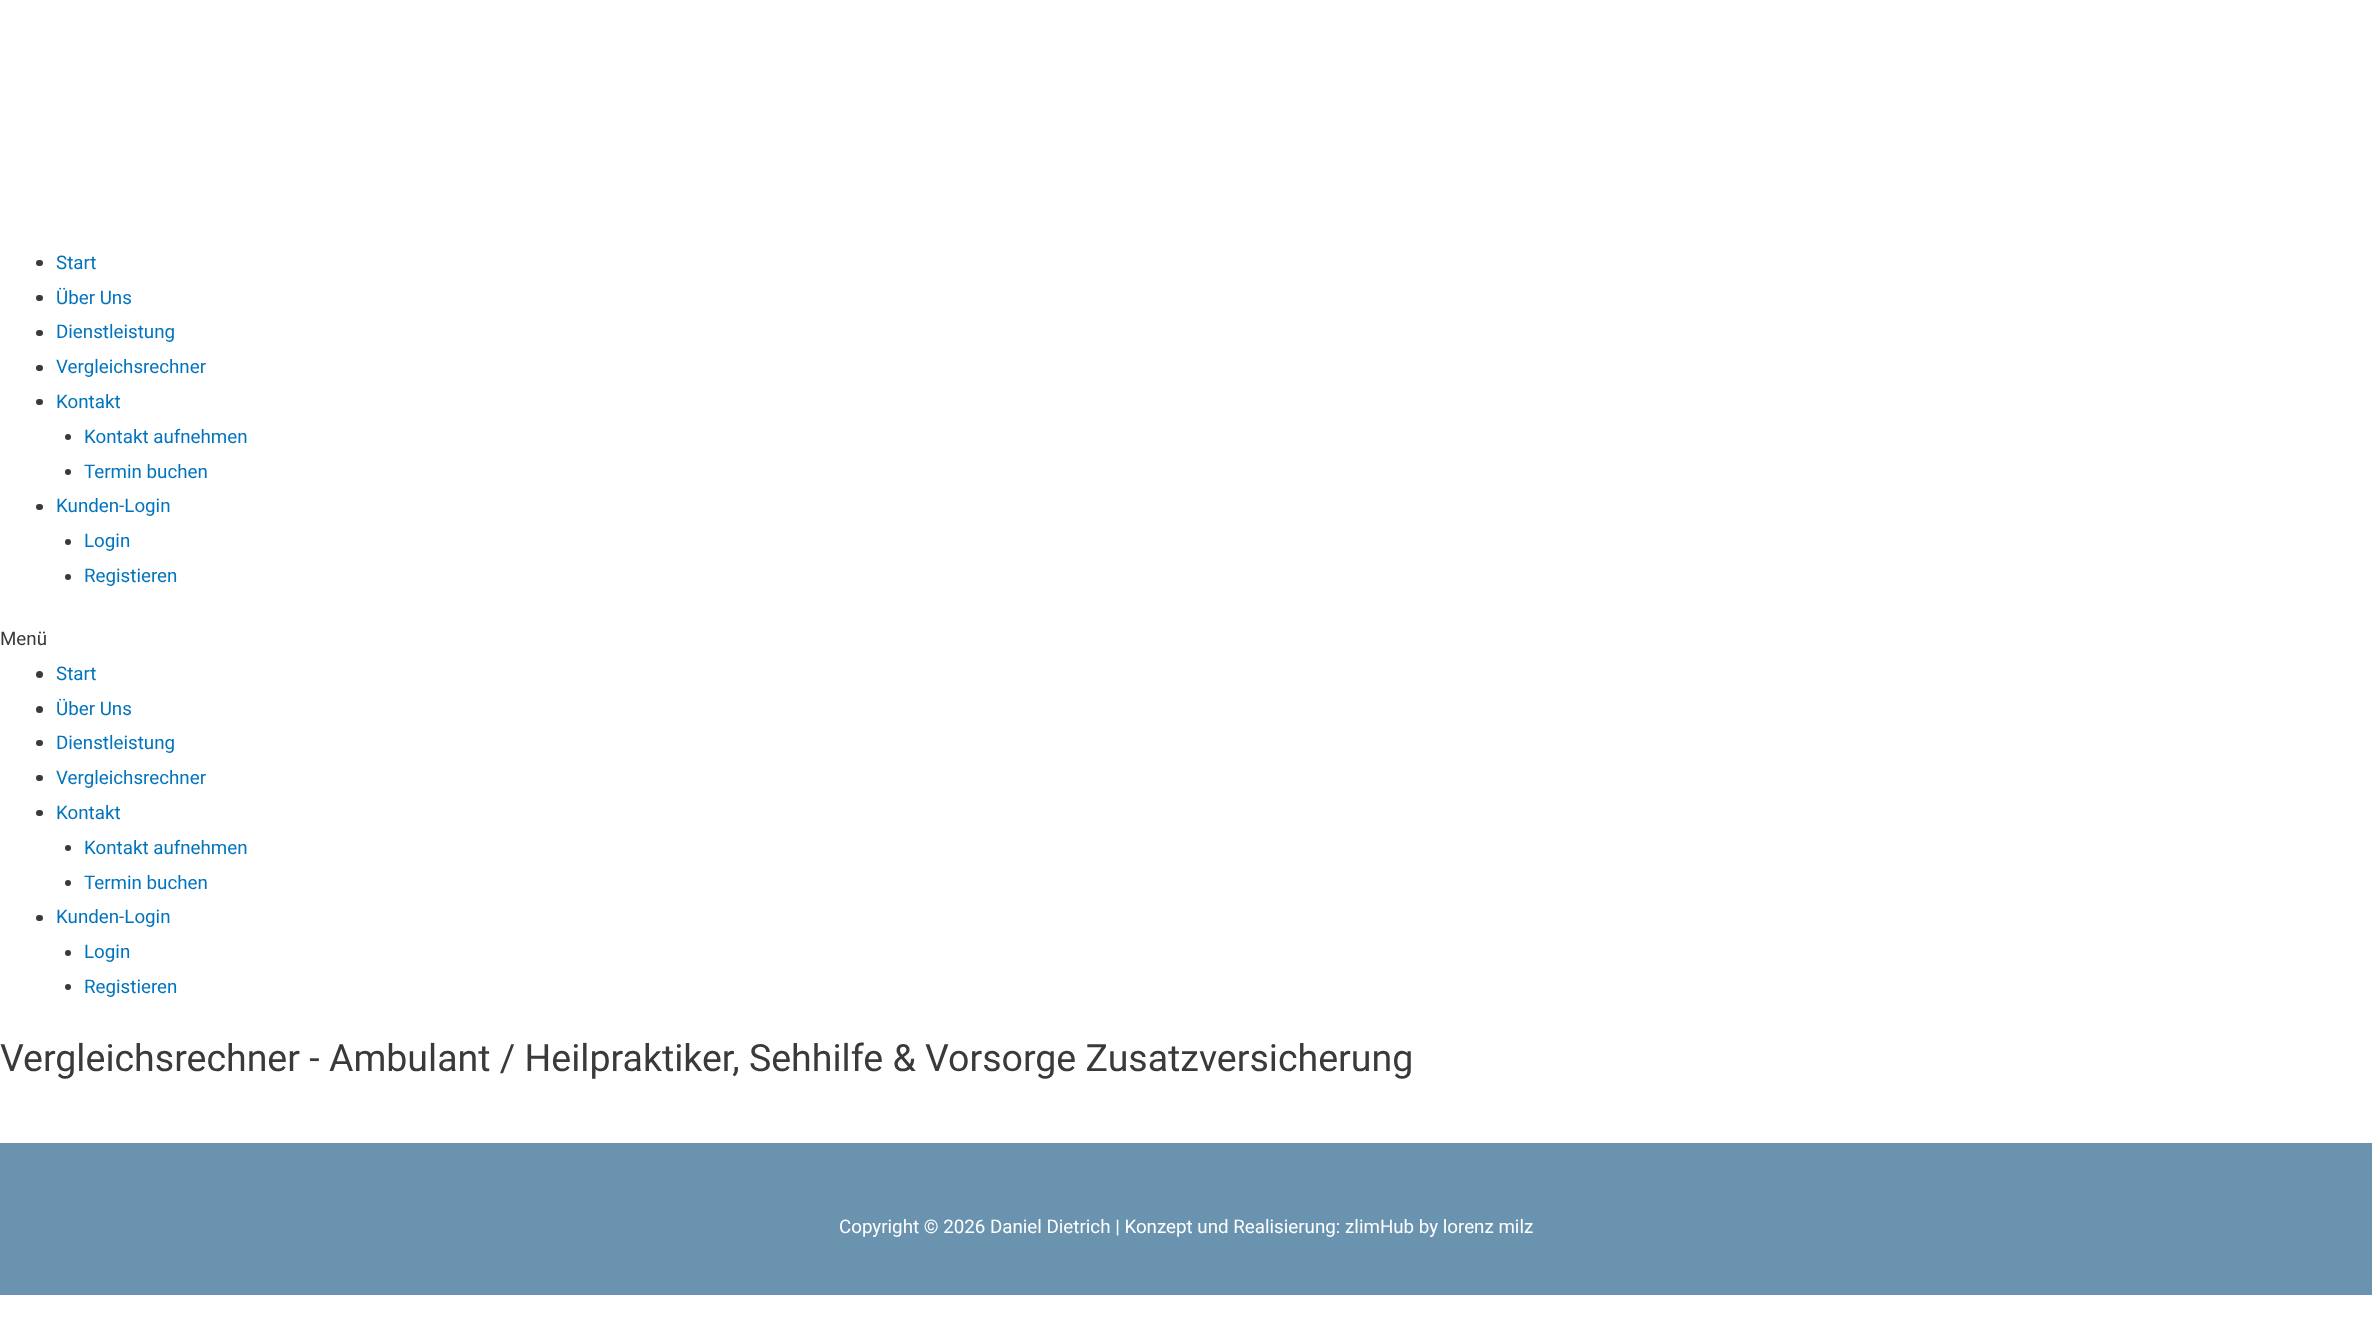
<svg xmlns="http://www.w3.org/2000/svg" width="2372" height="1318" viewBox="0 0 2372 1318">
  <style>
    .t1 { font: 18.75px Roboto; fill: #0274be; }
    .t2 { font: 18.75px Roboto; fill: #3a3a3a; }
    .t3 { font: 37.5px Roboto; fill: #3a3a3a; }
    .t4 { font: 18.75px Roboto; fill: #fff; }
  </style>
  <rect width="100%" height="100%" fill="#fff"/>
  <rect x="36" y="260" width="7" height="6" rx="3" fill="#3a3a3a"/>
  <text x="56" y="269" class="t1">Start</text>
  <rect x="36" y="295" width="7" height="6" rx="3" fill="#3a3a3a"/>
  <text x="56" y="304" class="t1">Über Uns</text>
  <rect x="36" y="330" width="7" height="6" rx="3" fill="#3a3a3a"/>
  <text x="56" y="338" class="t1">Dienstleistung</text>
  <rect x="36" y="365" width="7" height="6" rx="3" fill="#3a3a3a"/>
  <text x="56" y="373" class="t1">Vergleichsrechner</text>
  <rect x="36" y="399" width="7" height="6" rx="3" fill="#3a3a3a"/>
  <text x="56" y="408" class="t1">Kontakt</text>
  <circle cx="68" cy="437" r="3" fill="#3a3a3a"/>
  <text x="84" y="443" class="t1">Kontakt aufnehmen</text>
  <circle cx="68" cy="472" r="3" fill="#3a3a3a"/>
  <text x="84" y="478" class="t1">Termin buchen</text>
  <rect x="36" y="504" width="7" height="6" rx="3" fill="#3a3a3a"/>
  <text x="56" y="512" class="t1">Kunden-Login</text>
  <circle cx="68" cy="542" r="3" fill="#3a3a3a"/>
  <text x="84" y="547" class="t1">Login</text>
  <circle cx="68" cy="577" r="3" fill="#3a3a3a"/>
  <text x="84" y="582" class="t1">Registieren</text>
  <text x="0" y="645" class="t2">Menü</text>
  <circle cx="39.5" cy="674.5" r="3.5" fill="#3a3a3a"/>
  <text x="56" y="680" class="t1">Start</text>
  <circle cx="39.5" cy="709.5" r="3.5" fill="#3a3a3a"/>
  <text x="56" y="715" class="t1">Über Uns</text>
  <rect x="36" y="740" width="7" height="6" rx="3" fill="#3a3a3a"/>
  <text x="56" y="749" class="t1">Dienstleistung</text>
  <rect x="36" y="775" width="7" height="6" rx="3" fill="#3a3a3a"/>
  <text x="56" y="784" class="t1">Vergleichsrechner</text>
  <rect x="36" y="810" width="7" height="6" rx="3" fill="#3a3a3a"/>
  <text x="56" y="819" class="t1">Kontakt</text>
  <circle cx="68" cy="848" r="3" fill="#3a3a3a"/>
  <text x="84" y="854" class="t1">Kontakt aufnehmen</text>
  <circle cx="68" cy="883" r="3" fill="#3a3a3a"/>
  <text x="84" y="889" class="t1">Termin buchen</text>
  <rect x="36" y="915" width="7" height="6" rx="3" fill="#3a3a3a"/>
  <text x="56" y="923" class="t1">Kunden-Login</text>
  <circle cx="68" cy="953" r="3" fill="#3a3a3a"/>
  <text x="84" y="958" class="t1">Login</text>
  <circle cx="68" cy="987" r="3" fill="#3a3a3a"/>
  <text x="84" y="993" class="t1">Registieren</text>
  <text x="0" y="1071" class="t3">Vergleichsrechner - Ambulant / Heilpraktiker, Sehhilfe &amp; Vorsorge Zusatzversicherung</text>
  <rect x="0" y="1143" width="2372" height="152" fill="#6a93b0"/>
  <text x="839" y="1233" class="t4">Copyright © 2026 Daniel Dietrich | Konzept und Realisierung: zlimHub by lorenz milz</text>
</svg>
